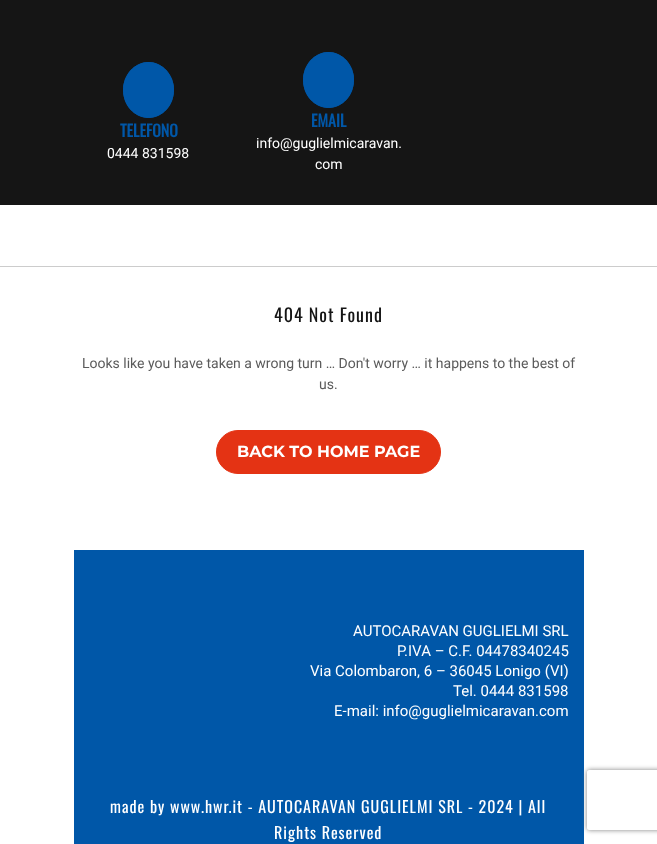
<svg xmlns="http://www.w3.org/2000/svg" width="657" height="844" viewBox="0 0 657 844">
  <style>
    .t1 { font: bold 16px Oswald; fill: #0057a8; }
    .t2 { font: 14px Roboto; fill: #fff; }
    .t3 { font: 18px Oswald; letter-spacing: 1px; fill: #151515; }
    .t4 { font: 14px Roboto; fill: #5b5b5b; }
    .t5 { font: bold 16px Montserrat; fill: #fff; }
    .t6 { font: 15px Roboto; fill: #fff; }
    .t7 { font: 16px Oswald; letter-spacing: 1px; fill: #fff; }
  </style>
  <defs>
    <clipPath id="clip1"><path d="M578 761H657V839H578ZM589 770H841C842 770 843 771 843 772V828C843 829 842 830 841 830H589C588 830 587 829 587 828V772C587 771 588 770 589 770Z" clip-rule="evenodd"/></clipPath>
  </defs>
  <rect width="100%" height="100%" fill="#fff"/>
  <rect x="0" y="0" width="657" height="205" fill="#151515"/>
  <ellipse cx="148.5" cy="90" rx="25.5" ry="28" fill="#0057a8"/>
  <path d="M148.5 62.5C162.5 62.5 173.5 75 173.5 90C173.5 105 162.5 117.5 148.5 117.5C134.5 117.5 123.5 105 123.5 90C123.5 75 134.5 62.5 148.5 62.5Z" fill="none" stroke="#0057a8"/>
  <text x="120" y="137" class="t1">TELEFONO</text>
  <text x="107" y="158" class="t2">0444 831598</text>
  <ellipse cx="328.5" cy="80" rx="25.5" ry="28" fill="#0057a8"/>
  <path d="M328.5 52.5C342.5 52.5 353.5 65 353.5 80C353.5 95 342.5 107.5 328.5 107.5C314.5 107.5 303.5 95 303.5 80C303.5 65 314.5 52.5 328.5 52.5Z" fill="none" stroke="#0057a8"/>
  <text x="311" y="127" class="t1">EMAIL</text>
  <text x="256" y="148" class="t2">info@guglielmicaravan.</text>
  <text x="315" y="169" class="t2">com</text>
  <rect x="0" y="266" width="657" height="1" fill="#ccc"/>
  <text x="274" y="322" class="t3">404 Not Found</text>
  <text x="82" y="368" class="t4">Looks like you have taken a wrong turn … Don't worry … it happens to the best of</text>
  <text x="319" y="389" class="t4">us.</text>
  <rect x="216.5" y="430.5" width="224" height="43" rx="21.5" fill="#e43314" stroke="#e43314"/>
  <text x="237" y="457" class="t5">BACK TO HOME PAGE</text>
  <rect x="74" y="550" width="510" height="294" fill="#0057a8"/>
  <text x="353" y="636" class="t6">AUTOCARAVAN GUGLIELMI SRL</text>
  <text x="397" y="656" class="t6">P.IVA – C.F. 04478340245</text>
  <text x="310" y="676" class="t6">Via Colombaron, 6 – 36045 Lonigo (VI)</text>
  <text x="453" y="696" class="t6">Tel. 0444 831598</text>
  <text x="334" y="716" class="t6">E-mail: info@guglielmicaravan.com</text>
  <text x="110" y="813" class="t7">made by www.hwr.it - AUTOCARAVAN GUGLIELMI SRL - 2024 | All</text>
  <text x="274" y="839" class="t7">Rights Reserved</text>
  <g clip-path="url(#clip1)">
    <rect x="587" y="770" width="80" height="60" rx="2" fill="#808080" filter="blur(2.5px)"/>
  </g>
</svg>
